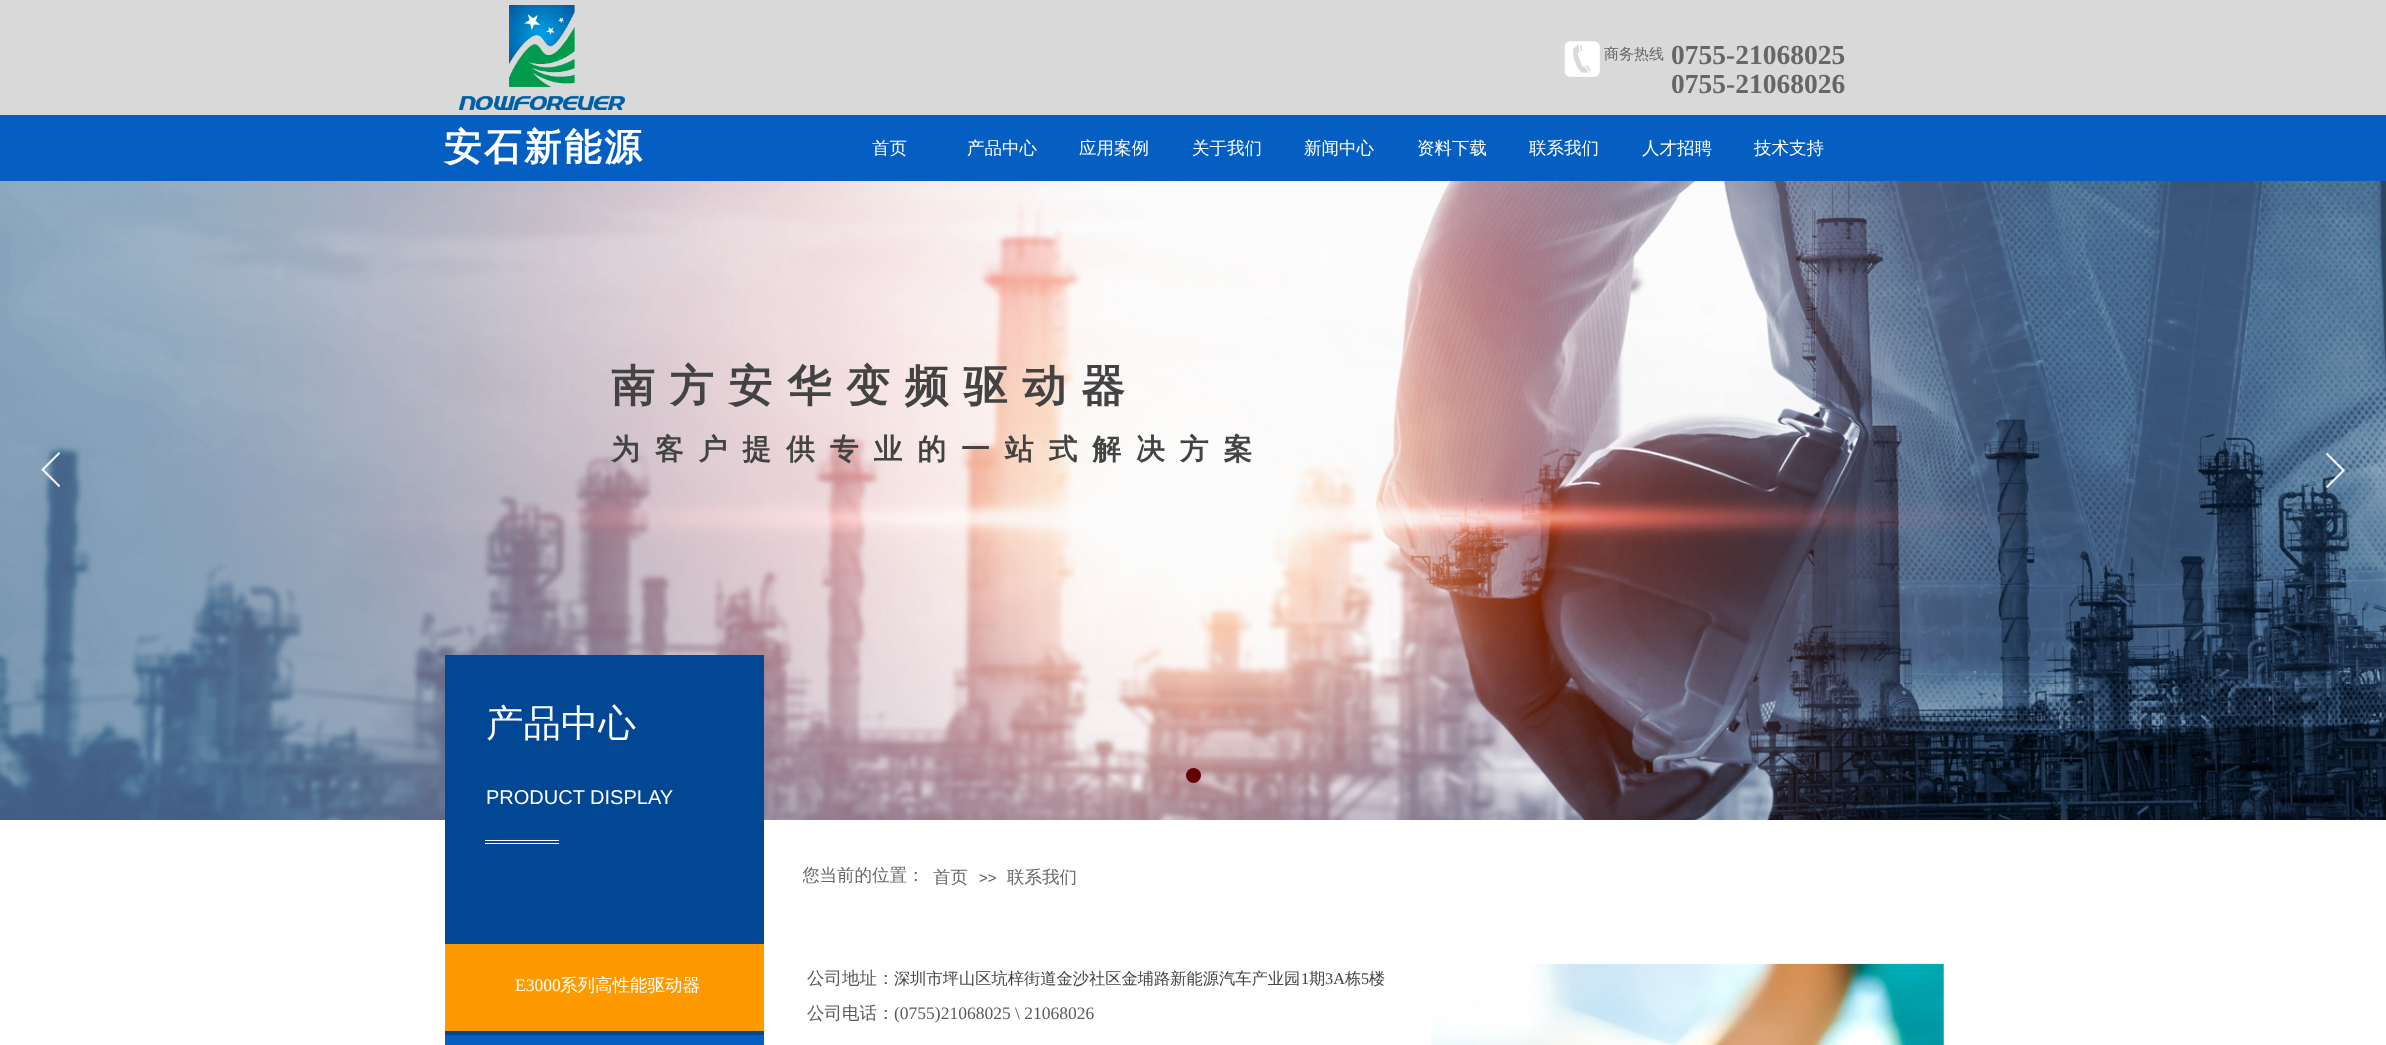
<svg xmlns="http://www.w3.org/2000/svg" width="2386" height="1045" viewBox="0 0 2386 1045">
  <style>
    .t1 { font: 500 15px WenQuanYi Zen Hei; fill: #666; }
    .t2 { font: bold 27.5px Liberation Serif; fill: #666; }
    .t3 { font: bold 37.5px WenQuanYi Zen Hei; letter-spacing: 2.5px; fill: #fff; }
    .t4 { font: 500 17.5px WenQuanYi Zen Hei; fill: #fff; }
    .t5 { font: bold 43.75px WenQuanYi Zen Hei; letter-spacing: 15px; fill: #434343; }
    .t6 { font: bold 28.75px WenQuanYi Zen Hei; letter-spacing: 15px; fill: #434343; }
    .t7 { font: 500 37.5px WenQuanYi Zen Hei; fill: #fff; }
    .t8 { font: 20px Liberation Sans; fill: #fff; }
    .t9 { font: 500 17.5px WenQuanYi Zen Hei; fill: #666; }
    .t10 { font: 15px Liberation Sans; fill: #5a5a5a; }
    .t11 { font: 17.5px Liberation Serif; fill: #fff; }
    .t12 { font: 500 17.5px WenQuanYi Zen Hei; fill: #5a5a5a; }
    .t13 { font: 500 16.25px WenQuanYi Zen Hei; fill: #434343; }
    .t14 { font: 16.25px Liberation Serif; fill: #434343; }
    .t15 { font: 17.5px Liberation Serif; fill: #5a5a5a; }
  </style>
  <defs>
    <clipPath id="clip1"><rect x="803" y="864" width="123" height="32"/></clipPath>
  </defs>
  <rect width="100%" height="100%" fill="#fff"/>
  <rect x="0" y="0" width="2386" height="115" fill="#d9d9d9"/>
  <image x="458" y="5" width="167" height="105" href="images/1.png"/>
  <image x="1564" y="41" width="36" height="36" href="images/2.png"/>
  <text x="1604" y="59" class="t1">商务热线</text>
  <text x="1671" y="64" class="t2">0755-21068025</text>
  <text x="1671" y="93" class="t2">0755-21068026</text>
  <rect x="0" y="115" width="2386" height="66" fill="#055fc2"/>
  <text x="444" y="160" class="t3">安石新能源</text>
  <text x="872" y="154" class="t4">首页</text>
  <text x="967" y="154" class="t4">产品中心</text>
  <text x="1079" y="154" class="t4">应用案例</text>
  <text x="1192" y="154" class="t4">关于我们</text>
  <text x="1304" y="154" class="t4">新闻中心</text>
  <text x="1417" y="154" class="t4">资料下载</text>
  <text x="1529" y="154" class="t4">联系我们</text>
  <text x="1642" y="154" class="t4">人才招聘</text>
  <text x="1754" y="154" class="t4">技术支持</text>
  <image x="0" y="181" width="2386" height="639" href="images/3.png"/>
  <image x="41" y="451" width="20" height="37" href="images/4.png"/>
  <image x="2325" y="452" width="21" height="37" href="images/5.png"/>
  <circle cx="1193.5" cy="775.5" r="7.5" fill="#600"/>
  <text x="611" y="401" class="t5">南方安华变频驱动器</text>
  <text x="611" y="459" class="t6">为客户提供专业的一站式解决方案</text>
  <rect x="445" y="655" width="319" height="380" fill="#024793"/>
  <text x="486" y="736" class="t7">产品中心</text>
  <text x="486" y="804" class="t8">PRODUCT DISPLAY</text>
  <rect x="485" y="840" width="74" height="1" fill="#fff"/>
  <rect x="485" y="843" width="74" height="1" fill="#fff"/>
  <g clip-path="url(#clip1)">
    <text x="802" y="881" class="t9">您当前的位置：</text>
  </g>
  <text x="933" y="883" class="t9">首页</text>
  <text x="979" y="883" class="t10">&gt;&gt;</text>
  <text x="1007" y="883" class="t9">联系我们</text>
  <rect x="445" y="944" width="319" height="87" fill="#f90"/>
  <text x="515" y="991" class="t11">E3000</text>
  <text x="560" y="991" class="t4">系列高性能驱动器</text>
  <rect x="445" y="1035" width="319" height="10" fill="#055fc2"/>
  <text x="807" y="984" class="t12">公司地址：</text>
  <text x="894" y="984" class="t13">深圳市坪山区坑梓街道金沙社区金埔路新能源汽车产业园</text>
  <text x="1301" y="984" class="t14">1</text>
  <text x="1309" y="984" class="t13">期</text>
  <text x="1325" y="984" class="t14">3A</text>
  <text x="1345" y="984" class="t13">栋</text>
  <text x="1361" y="984" class="t14">5</text>
  <text x="1369" y="984" class="t13">楼</text>
  <text x="807" y="1019" class="t12">公司电话：</text>
  <text x="894" y="1019" class="t15">(0755)21068025 \ 21068026</text>
  <image x="1431" y="963" width="513" height="82" href="images/6.png"/>
</svg>
